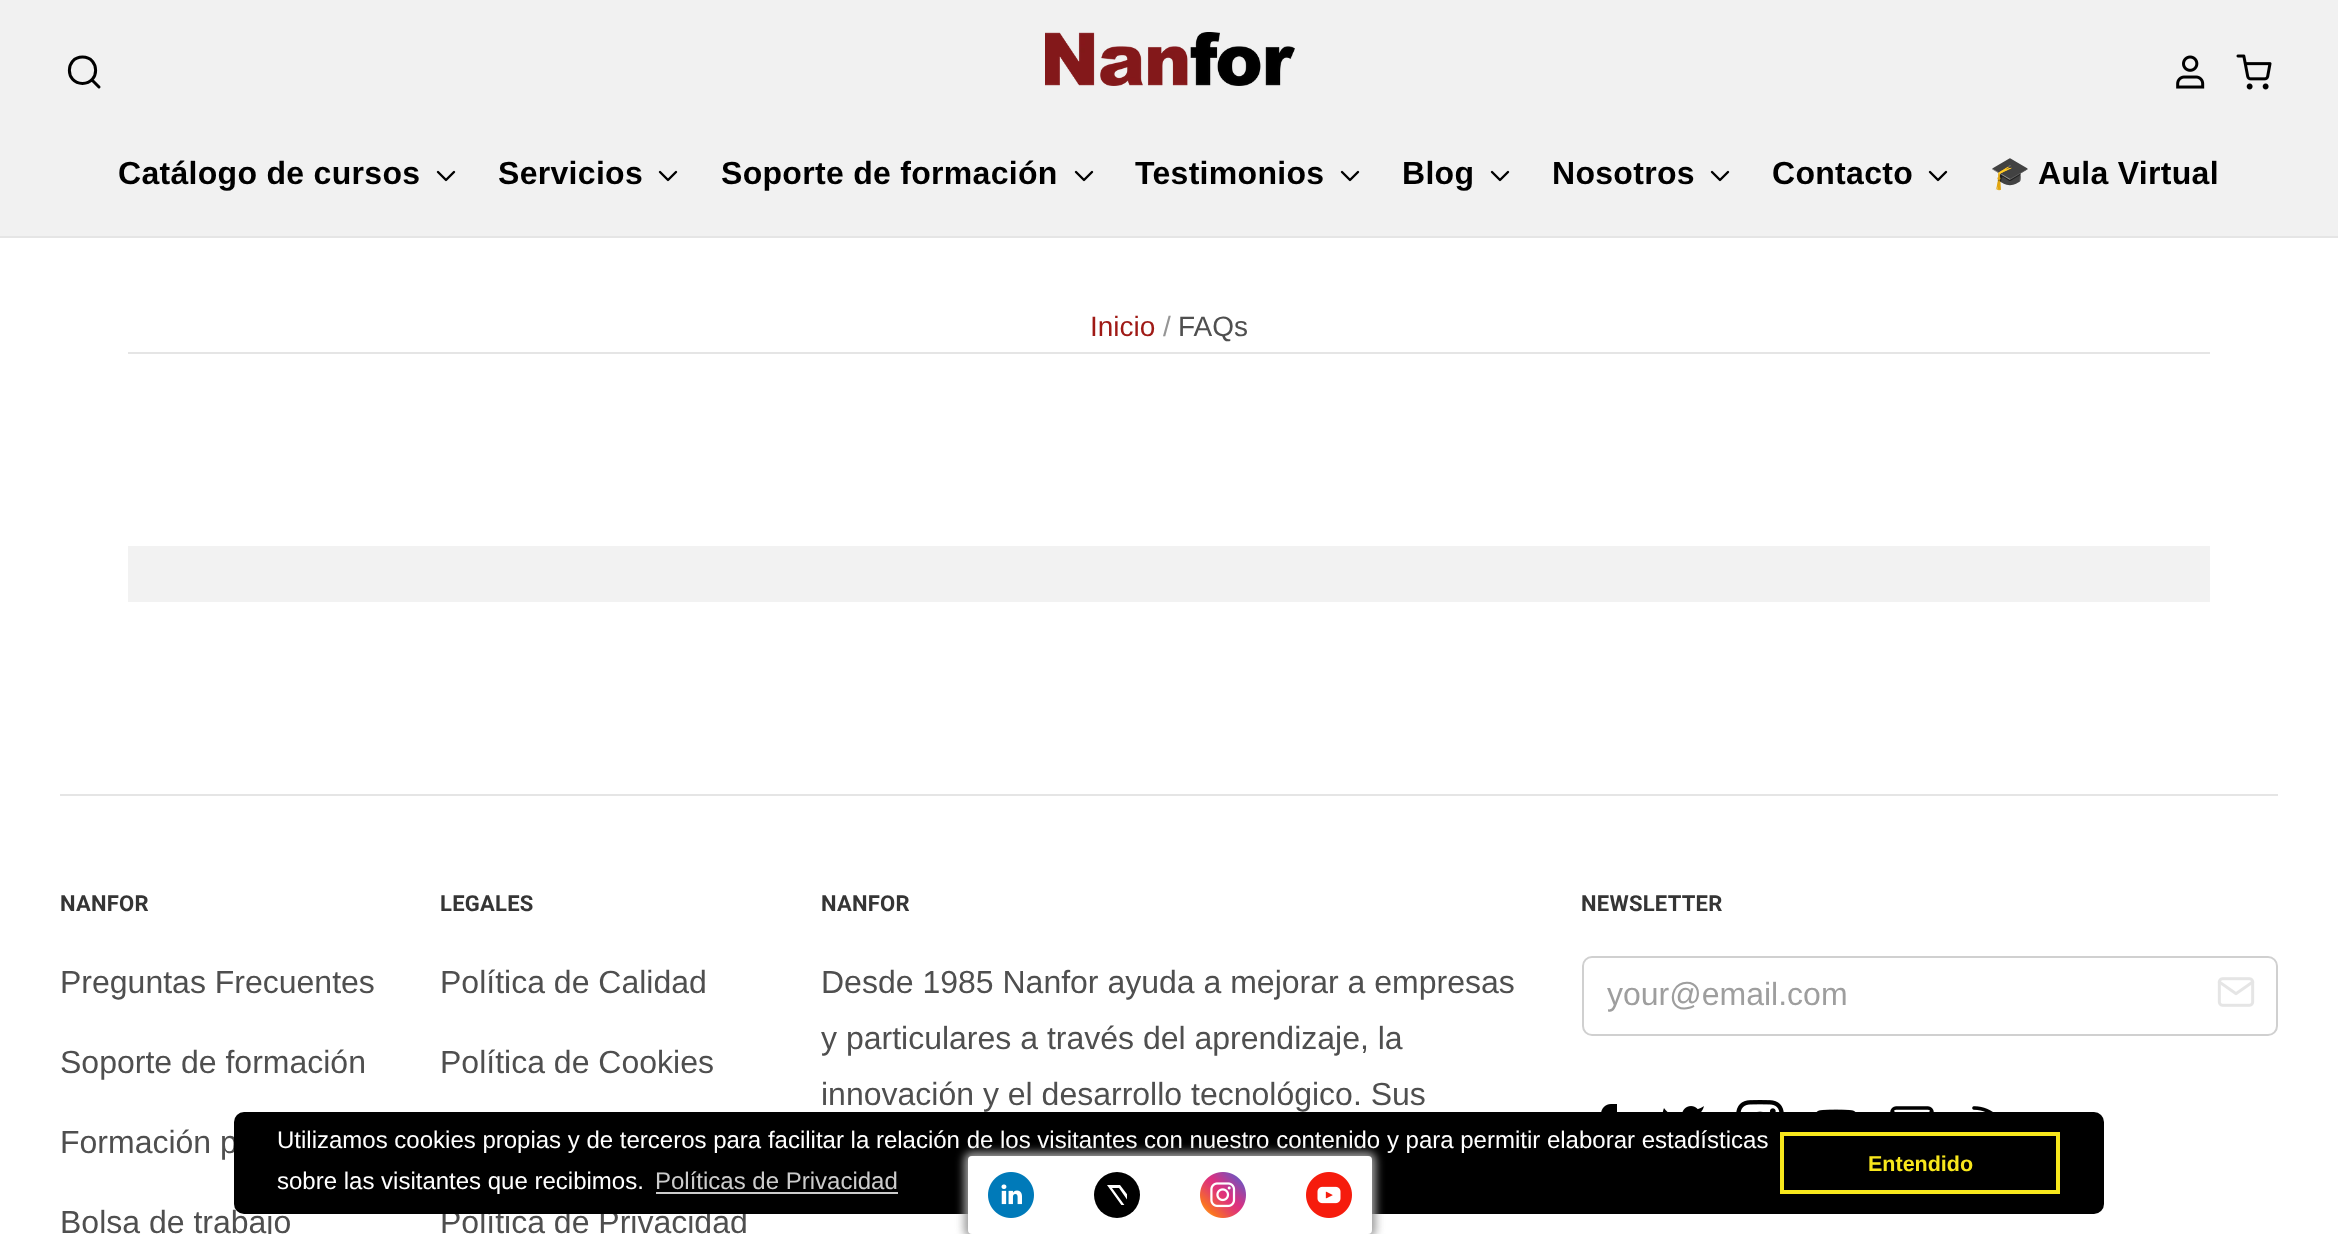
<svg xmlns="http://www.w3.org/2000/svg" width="2338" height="1234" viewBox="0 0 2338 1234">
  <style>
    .t1 { font: bold 32px Liberation Sans; letter-spacing: 0.3px; fill: #000; }
    .t2 { font: bold 32px Noto Color Emoji; letter-spacing: 0.3px; fill: #000; }
    .t3 { font: 28px Liberation Sans; fill: #9f1915; }
    .t4 { font: 28px Liberation Sans; fill: #959595; }
    .t5 { font: 28px Liberation Sans; fill: #4f4f4f; }
    .t6 { font: bold 22px Roboto; letter-spacing: 0.25px; fill: #353535; }
    .t7 { font: 32px Liberation Sans; fill: #4f4f4f; }
    .t8 { font: 32px Liberation Sans; fill: #9e9e9e; }
    .t9 { font: 24px Liberation Sans; fill: #fff; }
    .t10 { font: 24px Liberation Sans; fill: #ccc; }
    .t11 { font: bold 21.5px Liberation Sans; fill: #f8e71c; }
  </style>
  <defs>
    <clipPath id="clip1"><rect x="1107" y="1185" width="20" height="20"/></clipPath>
  </defs>
  <rect width="100%" height="100%" fill="#fff"/>
  <rect x="0" y="0" width="2338" height="236" fill="#f1f1f1"/>
  <rect x="0" y="236" width="2338" height="2" fill="#e5e5e5"/>
  <path d="M82.5 57C65 57 65 83.5 82.5 83.5C100 83.5 100 57 82.5 57ZM99 87L92 80Z" fill="none" stroke="#000" stroke-width="3" stroke-linecap="round" stroke-linejoin="round"/>
  <image x="1045" y="32" width="250" height="54" href="images/1.png"/>
  <image x="2176" y="55" width="29" height="34" href="images/2.png"/>
  <image x="2236" y="54" width="36" height="36" href="images/3.png"/>
  <text x="118" y="184" class="t1">Catálogo de cursos</text>
  <path d="M438 172L446 180L454 172" fill="none" stroke="#000" stroke-width="2.4" stroke-linecap="round" stroke-linejoin="round"/>
  <text x="498" y="184" class="t1">Servicios</text>
  <path d="M660 172L668 180L676 172" fill="none" stroke="#000" stroke-width="2.4" stroke-linecap="round" stroke-linejoin="round"/>
  <text x="721" y="184" class="t1">Soporte de formación</text>
  <path d="M1076 172L1084 180L1092 172" fill="none" stroke="#000" stroke-width="2.4" stroke-linecap="round" stroke-linejoin="round"/>
  <text x="1135" y="184" class="t1">Testimonios</text>
  <path d="M1342 172L1350 180L1358 172" fill="none" stroke="#000" stroke-width="2.4" stroke-linecap="round" stroke-linejoin="round"/>
  <text x="1402" y="184" class="t1">Blog</text>
  <path d="M1492 172L1500 180L1508 172" fill="none" stroke="#000" stroke-width="2.4" stroke-linecap="round" stroke-linejoin="round"/>
  <text x="1552" y="184" class="t1">Nosotros</text>
  <path d="M1712 172L1720 180L1728 172" fill="none" stroke="#000" stroke-width="2.4" stroke-linecap="round" stroke-linejoin="round"/>
  <text x="1772" y="184" class="t1">Contacto</text>
  <path d="M1930 172L1938 180L1946 172" fill="none" stroke="#000" stroke-width="2.4" stroke-linecap="round" stroke-linejoin="round"/>
  <text x="1990" y="184" class="t2">🎓</text>
  <text x="2038" y="184" class="t1">Aula Virtual</text>
  <text x="1090" y="336" class="t3">Inicio</text>
  <text x="1163" y="336" class="t4">/</text>
  <text x="1178" y="336" class="t5">FAQs</text>
  <rect x="128" y="352" width="2082" height="2" fill="#e5e5e5"/>
  <rect x="128" y="546" width="2082" height="56" fill="#f2f2f2"/>
  <rect x="60" y="794" width="2218" height="2" fill="#e5e5e5"/>
  <text x="60" y="911" class="t6">NANFOR</text>
  <text x="60" y="993" class="t7">Preguntas Frecuentes</text>
  <text x="60" y="1073" class="t7">Soporte de formación</text>
  <text x="60" y="1153" class="t7">Formación p</text>
  <text x="60" y="1233" class="t7">Bolsa de trabajo</text>
  <text x="440" y="911" class="t6">LEGALES</text>
  <text x="440" y="993" class="t7">Política de Calidad</text>
  <text x="440" y="1073" class="t7">Política de Cookies</text>
  <text x="440" y="1233" class="t7">Política de Privacidad</text>
  <text x="821" y="911" class="t6">NANFOR</text>
  <text x="821" y="993" class="t7">Desde 1985 Nanfor ayuda a mejorar a empresas</text>
  <text x="821" y="1049" class="t7">y particulares a través del aprendizaje, la</text>
  <text x="821" y="1105" class="t7">innovación y el desarrollo tecnológico. Sus</text>
  <text x="1581" y="911" class="t6">NEWSLETTER</text>
  <rect x="1583" y="957" width="694" height="78" rx="9" fill="none" stroke="#d0d0d0" stroke-width="2"/>
  <text x="1607" y="1005" class="t8">your@email.com</text>
  <image x="2217" y="977" width="38" height="30" href="images/4.png"/>
  <image x="1601" y="1104" width="16" height="8" href="images/5.png"/>
  <image x="1662" y="1106" width="42" height="6" href="images/6.png"/>
  <image x="1736" y="1100" width="48" height="12" href="images/7.png"/>
  <image x="1816" y="1109" width="40" height="3" href="images/8.png"/>
  <path d="M1896 1108H1928C1930 1108 1932 1110 1932 1112V1136C1932 1138 1930 1140 1928 1140H1896C1894 1140 1892 1138 1892 1136V1112C1892 1110 1894 1108 1896 1108ZM1932 1112L1912 1126L1892 1112" fill="none" stroke="#000" stroke-width="3.6" stroke-linecap="round" stroke-linejoin="round"/>
  <image x="1972" y="1106" width="21" height="6" href="images/9.png"/>
  <rect x="234" y="1112" width="1870" height="102" rx="10" fill="#000"/>
  <text x="277" y="1148" class="t9">Utilizamos cookies propias y de terceros para facilitar la relación de los visitantes con nuestro contenido y para permitir elaborar estadísticas</text>
  <text x="277" y="1189" class="t9">sobre las visitantes que recibimos.</text>
  <text x="655" y="1189" class="t10">Políticas de Privacidad</text>
  <rect x="656" y="1192" width="242" height="2" fill="#ccc"/>
  <rect x="1782" y="1134" width="276" height="58" fill="none" stroke="#f8e71c" stroke-width="4"/>
  <text x="1868" y="1171" class="t11">Entendido</text>
  <rect x="964" y="1152" width="412" height="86" rx="8" fill="#9e9e9e" filter="blur(4px)"/>
  <rect x="968" y="1156" width="404" height="78" rx="4" fill="#fff"/>
  <image x="988" y="1172" width="46" height="46" href="images/10.png"/>
  <circle cx="1117" cy="1195" r="23" fill="#000"/>
  <g clip-path="url(#clip1)">
    <path d="M1134 1204L1151 1185H1147L1132 1201L1120 1185H1107L1125 1210L1107 1231H1111L1126 1213L1139 1231H1152ZM1128 1210L1112 1188H1119L1147 1228H1141Z" fill="#fff"/>
  </g>
  <image x="1200" y="1172" width="46" height="46" href="images/11.png"/>
  <image x="1306" y="1172" width="46" height="46" href="images/12.png"/>
</svg>
